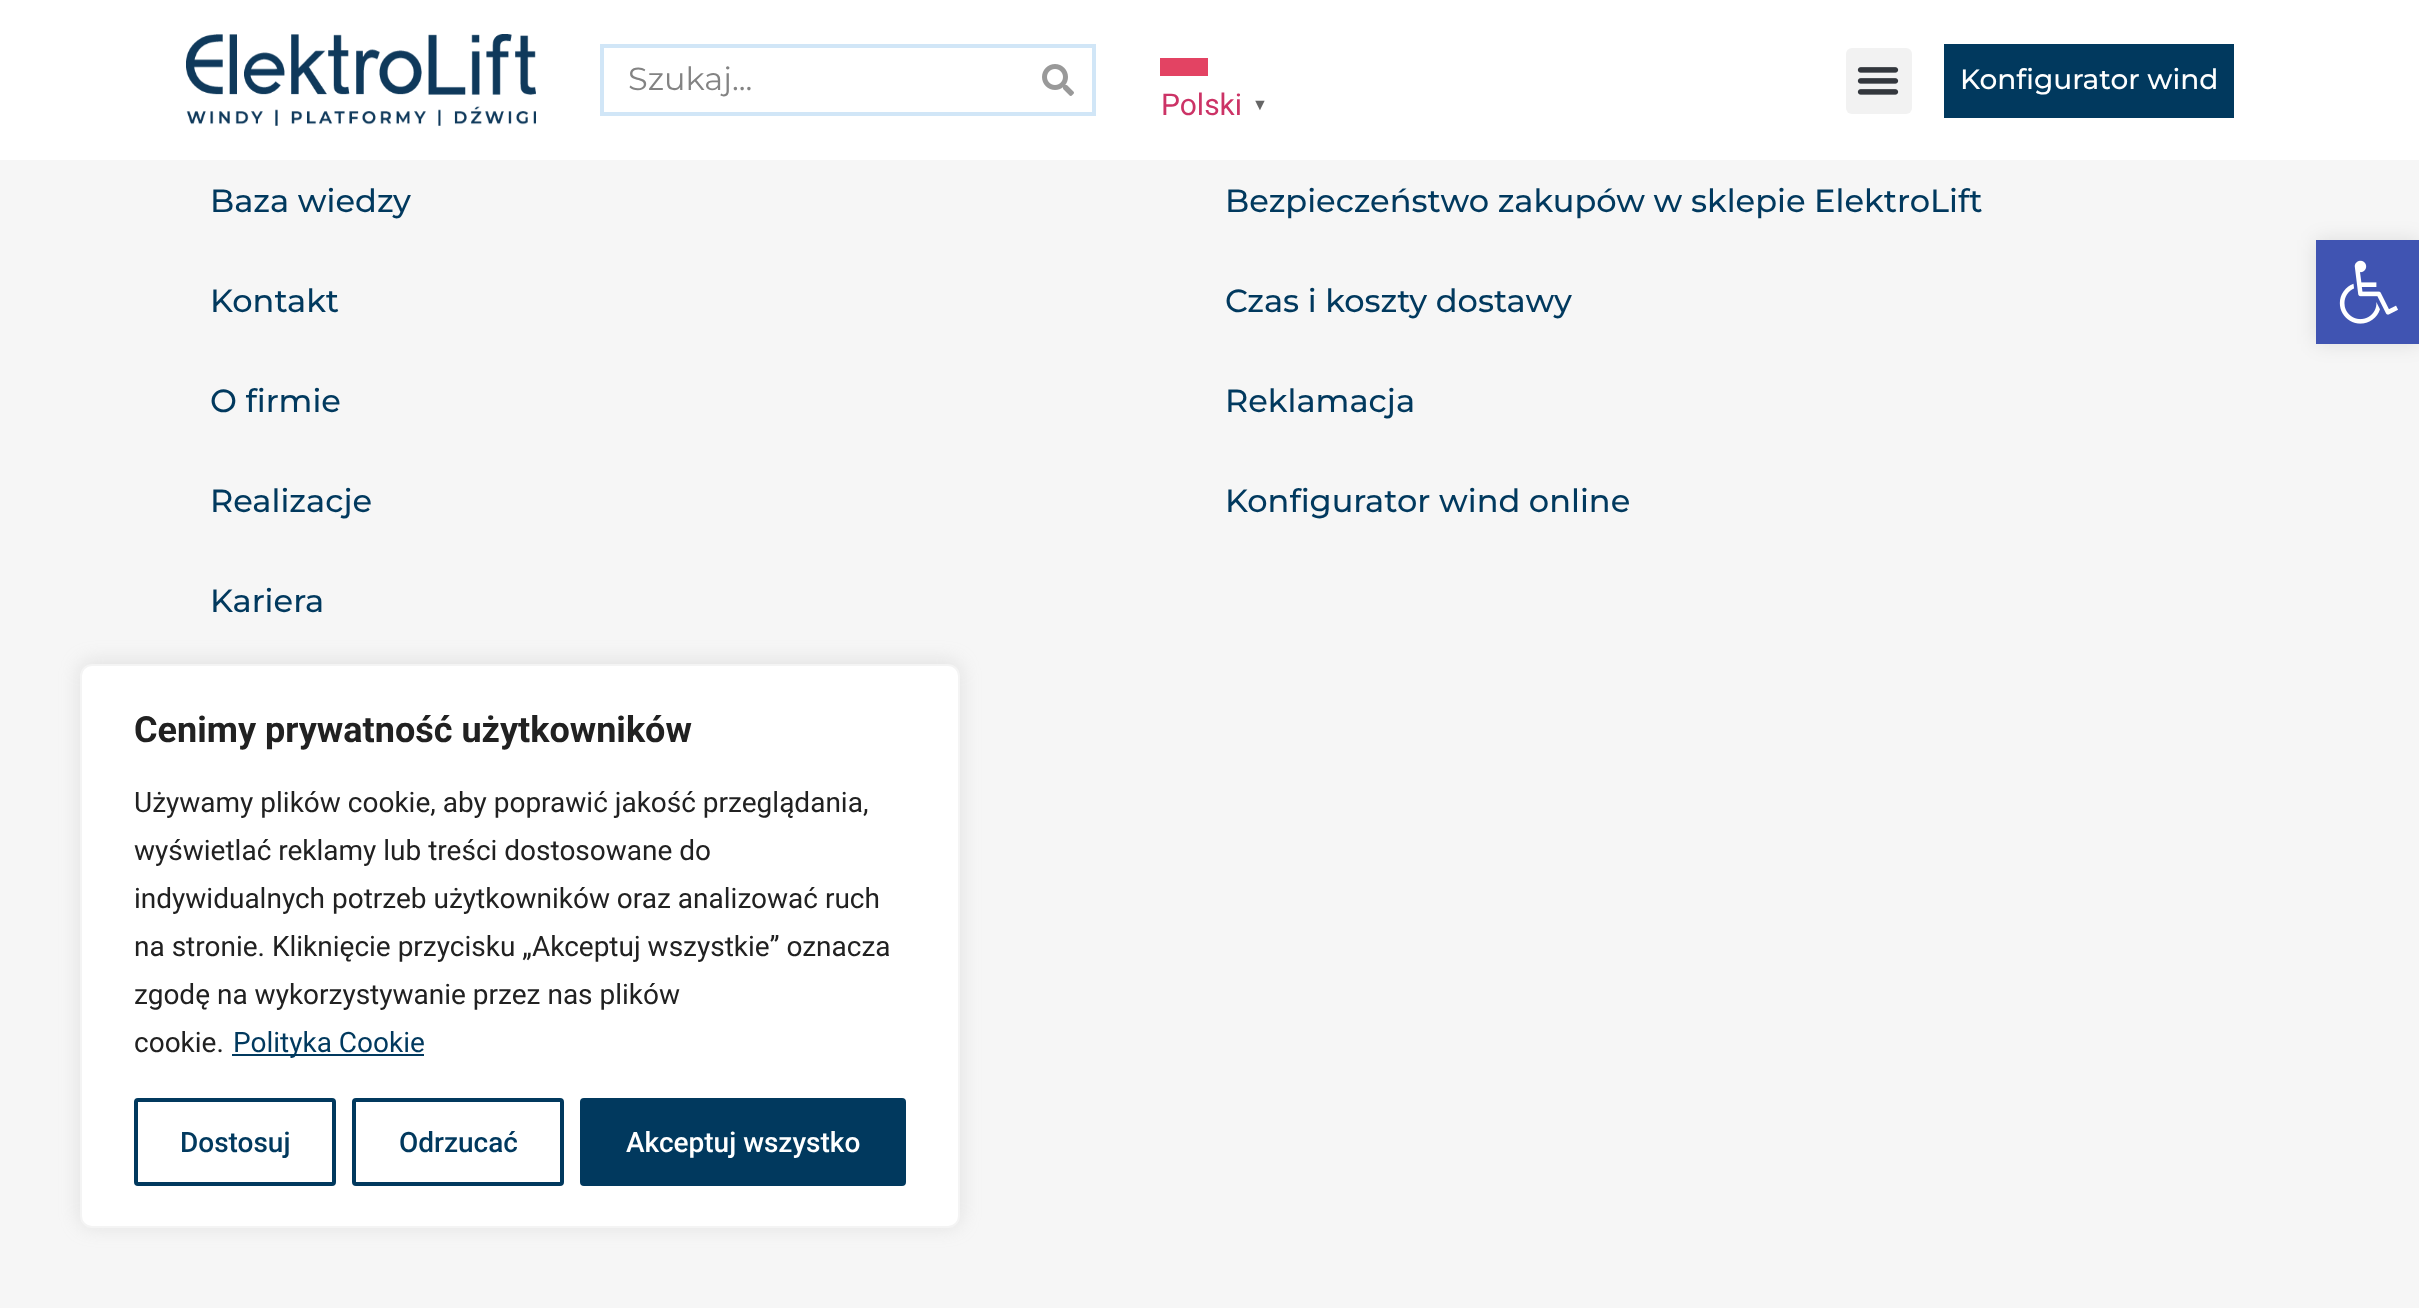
<svg xmlns="http://www.w3.org/2000/svg" width="2419" height="1308" viewBox="0 0 2419 1308">
  <style>
    .t1 { font: 32px Montserrat; fill: #838383; }
    .t2 { font: 30px Roboto; fill: #c36; }
    .t3 { font: bold 16px Liberation Sans; fill: #666; }
    .t4 { font: 500 28px Montserrat; fill: #fff; }
    .t5 { font: 500 32px Montserrat; fill: #01395e; }
    .t6 { font: bold 36px Roboto; fill: #212121; }
    .t7 { font: 28px Roboto; fill: #212121; }
    .t8 { font: 28px Roboto; fill: #01395e; }
    .t9 { font: 500 28px Roboto; fill: #01395e; }
    .t10 { font: 500 28px Roboto; fill: #fff; }
  </style>
  <rect width="100%" height="100%" fill="#f6f6f6"/>
  <rect x="0" y="0" width="2419" height="160" fill="#fff"/>
  <image x="186" y="34" width="350" height="92" href="images/1.png"/>
  <rect x="602" y="46" width="492" height="68" fill="none" stroke="#d1e6f7" stroke-width="4"/>
  <text x="628" y="90" class="t1">Szukaj...</text>
  <image x="1042" y="64" width="32" height="32" href="images/2.png"/>
  <text x="1161" y="115" class="t2">Polski</text>
  <rect x="1160" y="58" width="48" height="18" fill="#e34363"/>
  <text x="1252" y="110" class="t3">▼</text>
  <rect x="1846" y="48" width="66" height="66" rx="6" fill="#f2f2f2"/>
  <image x="1857" y="67" width="42" height="28" href="images/3.png"/>
  <rect x="1944" y="44" width="290" height="74" fill="#01395e"/>
  <text x="1960" y="89" class="t4">Konfigurator wind</text>
  <text x="210" y="212" class="t5">Baza wiedzy</text>
  <text x="210" y="312" class="t5">Kontakt</text>
  <text x="210" y="412" class="t5">O firmie</text>
  <text x="210" y="512" class="t5">Realizacje</text>
  <text x="210" y="612" class="t5">Kariera</text>
  <text x="1225" y="212" class="t5">Bezpieczeństwo zakupów w sklepie ElektroLift</text>
  <text x="1225" y="312" class="t5">Czas i koszty dostawy</text>
  <text x="1225" y="412" class="t5">Reklamacja</text>
  <text x="1225" y="512" class="t5">Konfigurator wind online</text>
  <rect x="2316" y="240" width="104" height="104" fill="#0000001a" filter="blur(10px)"/>
  <rect x="2316" y="240" width="103" height="104" fill="#4054b2"/>
  <image x="2339" y="260" width="59" height="64" href="images/4.png"/>
  <rect x="80" y="662" width="880" height="564" rx="12" fill="#acabab4d" filter="blur(10px)"/>
  <rect x="81" y="665" width="878" height="562" rx="11" fill="#fff" stroke="#f4f4f4" stroke-width="2"/>
  <text x="134" y="742" class="t6">Cenimy prywatność użytkowników</text>
  <text x="134" y="812" class="t7">Używamy plików cookie, aby poprawić jakość przeglądania,</text>
  <text x="134" y="860" class="t7">wyświetlać reklamy lub treści dostosowane do</text>
  <text x="134" y="908" class="t7">indywidualnych potrzeb użytkowników oraz analizować ruch</text>
  <text x="134" y="956" class="t7">na stronie. Kliknięcie przycisku „Akceptuj wszystkie” oznacza</text>
  <text x="134" y="1004" class="t7">zgodę na wykorzystywanie przez nas plików</text>
  <text x="134" y="1052" class="t7">cookie.</text>
  <rect x="232" y="1054" width="192" height="2" fill="#01395e"/>
  <text x="233" y="1052" class="t8">Polityka Cookie</text>
  <rect x="136" y="1100" width="198" height="84" rx="2" fill="none" stroke="#01395e" stroke-width="4"/>
  <text x="180" y="1152" class="t9">Dostosuj</text>
  <rect x="354" y="1100" width="208" height="84" rx="2" fill="none" stroke="#01395e" stroke-width="4"/>
  <text x="399" y="1152" class="t9">Odrzucać</text>
  <rect x="582" y="1100" width="322" height="84" rx="2" fill="#01395e" stroke="#01395e" stroke-width="4"/>
  <text x="626" y="1152" class="t10">Akceptuj wszystko</text>
</svg>
